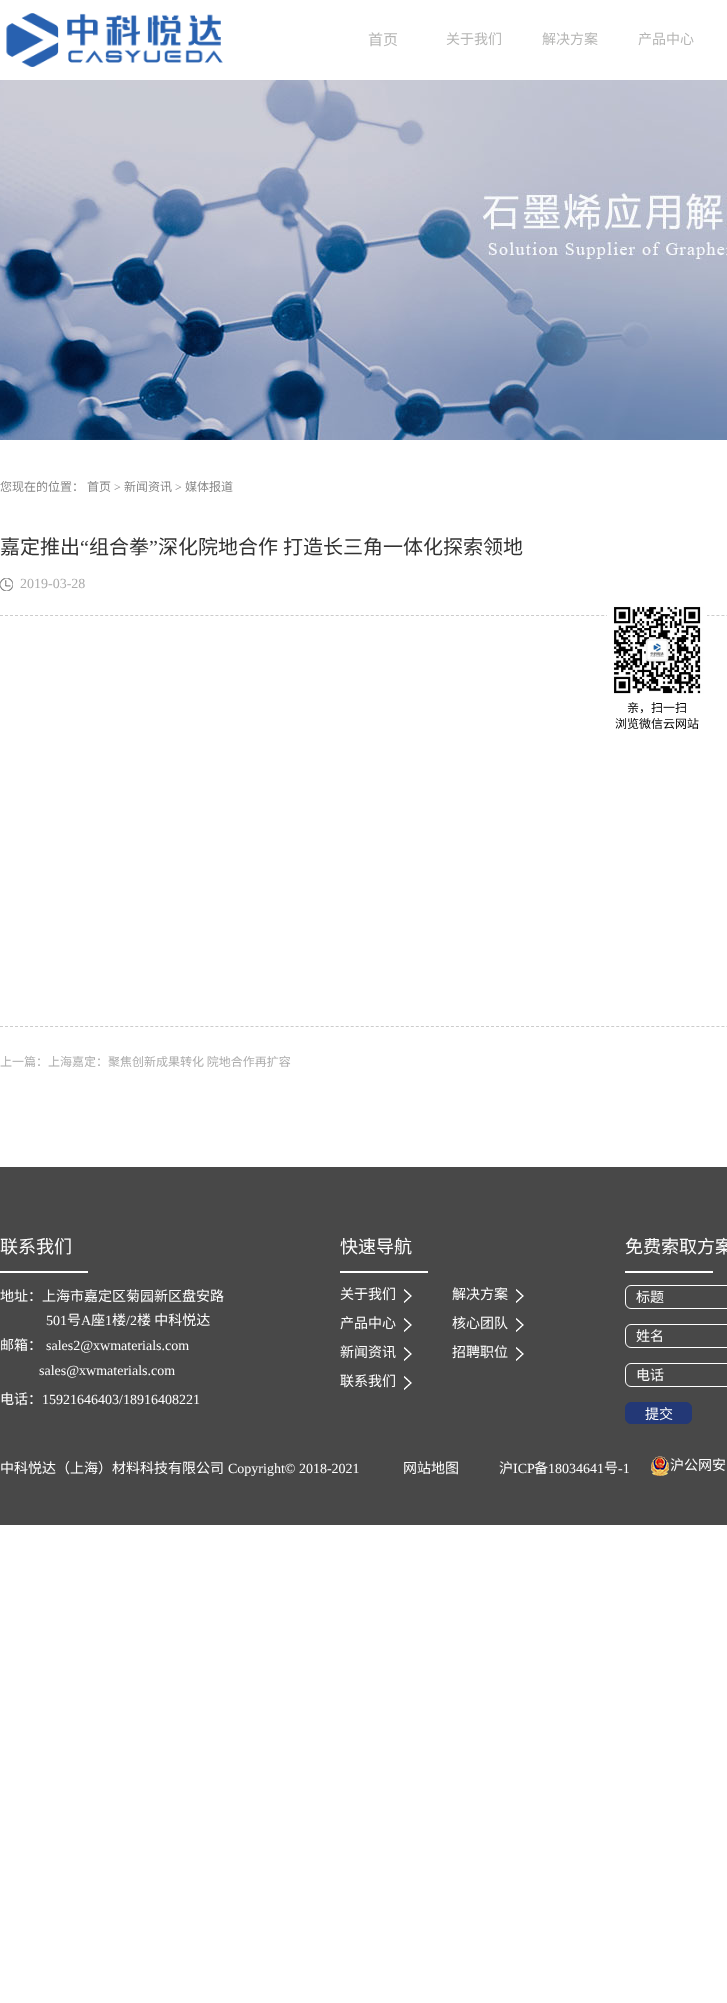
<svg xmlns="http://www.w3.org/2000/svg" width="727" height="2003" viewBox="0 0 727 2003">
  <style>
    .t1 { font: 15px Noto Sans CJK SC; fill: #b6b6b5; }
    .t2 { font: 14px Noto Sans CJK SC; fill: #b6b6b5; }
    .t3 { font: 12px Noto Sans CJK SC; fill: #888; }
    .t4 { font: 12px Liberation Serif; fill: #888; }
    .t5 { font: 20px Noto Sans CJK SC; fill: #333; }
    .t6 { font: 20px Liberation Serif; fill: #333; }
    .t7 { font: 14px Liberation Serif; fill: #acacac; }
    .t8 { font: 12px Noto Sans CJK SC; fill: #acacac; }
    .t9 { font: 12px Noto Sans CJK SC; fill: #000; }
    .t10 { font: 18px Noto Sans CJK SC; fill: #fefefe; }
    .t11 { font: 14px Noto Sans CJK SC; fill: #fefefe; }
    .t12 { font: 14px Liberation Serif; fill: #fefefe; }
  </style>
  <rect width="100%" height="100%" fill="#fff"/>
  <image x="6" y="13" width="217" height="54" href="images/1.png"/>
  <text x="368" y="45" class="t1">首页</text>
  <text x="446" y="44" class="t2">关于我们</text>
  <text x="542" y="44" class="t2">解决方案</text>
  <text x="638" y="44" class="t2">产品中心</text>
  <image x="0" y="80" width="727" height="360" href="images/2.png"/>
  <text x="0" y="491" class="t3">您现在的位置：</text>
  <text x="87" y="491" class="t3">首页</text>
  <text x="114" y="491" class="t4">&gt;</text>
  <text x="124" y="491" class="t3">新闻资讯</text>
  <text x="175" y="491" class="t4">&gt;</text>
  <text x="185" y="491" class="t3">媒体报道</text>
  <path d="M0 615.5H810" fill="none" stroke="#ccc" stroke-dasharray="3 2.01"/>
  <text x="0" y="554" class="t5">嘉定推出</text>
  <text x="80" y="554" class="t6">“</text>
  <text x="89" y="554" class="t5">组合拳</text>
  <text x="149" y="554" class="t6">”</text>
  <text x="158" y="554" class="t5">深化院地合作</text>
  <text x="283" y="554" class="t5">打造长三角一体化探索领地</text>
  <image x="0" y="578" width="13" height="13" href="images/3.png"/>
  <text x="20" y="588" class="t7">2019-03-28</text>
  <path d="M0 1026.5H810" fill="none" stroke="#ccc" stroke-dasharray="3 2.01"/>
  <text x="0" y="1066" class="t8">上一篇：</text>
  <text x="48" y="1066" class="t8">上海嘉定：聚焦创新成果转化 院地合作再扩容</text>
  <image x="607" y="606" width="100" height="88" href="images/4.png"/>
  <text x="627" y="712" class="t9">亲，扫一扫</text>
  <text x="615" y="728" class="t9">浏览微信云网站</text>
  <rect x="0" y="1167" width="727" height="358" fill="#484848"/>
  <rect x="0" y="1271" width="88" height="2" fill="#fff"/>
  <text x="0" y="1253" class="t10">联系我们</text>
  <text x="0" y="1301" class="t11">地址：上海市嘉定区菊园新区盘安路</text>
  <text x="46" y="1325" class="t12">501</text>
  <text x="67" y="1325" class="t11">号</text>
  <text x="81" y="1325" class="t12">A</text>
  <text x="91" y="1325" class="t11">座</text>
  <text x="105" y="1325" class="t12">1</text>
  <text x="112" y="1325" class="t11">楼</text>
  <text x="126" y="1325" class="t12">/2</text>
  <text x="137" y="1325" class="t11">楼 中科悦达</text>
  <text x="0" y="1350" class="t11">邮箱：</text>
  <text x="46" y="1350" class="t12">sales2@xwmaterials.com</text>
  <text x="39" y="1375" class="t12">sales@xwmaterials.com</text>
  <text x="0" y="1404" class="t11">电话：</text>
  <text x="42" y="1404" class="t12">15921646403/18916408221</text>
  <rect x="340" y="1271" width="88" height="2" fill="#fff"/>
  <text x="340" y="1253" class="t10">快速导航</text>
  <image x="404" y="1289" width="8" height="14" href="images/5.png"/>
  <text x="340" y="1299" class="t11">关于我们</text>
  <image x="516" y="1289" width="8" height="14" href="images/5.png"/>
  <text x="452" y="1299" class="t11">解决方案</text>
  <image x="404" y="1318" width="8" height="14" href="images/5.png"/>
  <text x="340" y="1328" class="t11">产品中心</text>
  <image x="516" y="1318" width="8" height="14" href="images/5.png"/>
  <text x="452" y="1328" class="t11">核心团队</text>
  <image x="404" y="1347" width="8" height="14" href="images/5.png"/>
  <text x="340" y="1357" class="t11">新闻资讯</text>
  <image x="516" y="1347" width="8" height="14" href="images/5.png"/>
  <text x="452" y="1357" class="t11">招聘职位</text>
  <image x="404" y="1376" width="8" height="14" href="images/5.png"/>
  <text x="340" y="1386" class="t11">联系我们</text>
  <rect x="625" y="1271" width="88" height="2" fill="#fff"/>
  <text x="625" y="1253" class="t10">免费索取方案</text>
  <rect x="625.5" y="1285.5" width="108" height="23" rx="5.5" fill="none" stroke="#fff"/>
  <text x="636" y="1302" class="t11">标题</text>
  <rect x="625.5" y="1324.5" width="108" height="23" rx="5.5" fill="none" stroke="#fff"/>
  <text x="636" y="1341" class="t11">姓名</text>
  <rect x="625.5" y="1363.5" width="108" height="23" rx="5.5" fill="none" stroke="#fff"/>
  <text x="636" y="1380" class="t11">电话</text>
  <rect x="625.5" y="1402.5" width="66" height="21" rx="5.5" fill="#233876" stroke="#233876"/>
  <text x="645" y="1419" class="t11">提交</text>
  <text x="0" y="1473" class="t11">中科悦达（上海）材料科技有限公司</text>
  <text x="228" y="1473" class="t12">Copyright© 2018-2021</text>
  <text x="403" y="1473" class="t11">网站地图</text>
  <text x="499" y="1473" class="t11">沪</text>
  <text x="513" y="1473" class="t12">ICP</text>
  <text x="534" y="1473" class="t11">备</text>
  <text x="548" y="1473" class="t12">18034641</text>
  <text x="604" y="1473" class="t11">号</text>
  <text x="618" y="1473" class="t12">-1</text>
  <image x="651" y="1456" width="18" height="20" href="images/6.png"/>
  <text x="670" y="1470" class="t11">沪公网安</text>
</svg>
